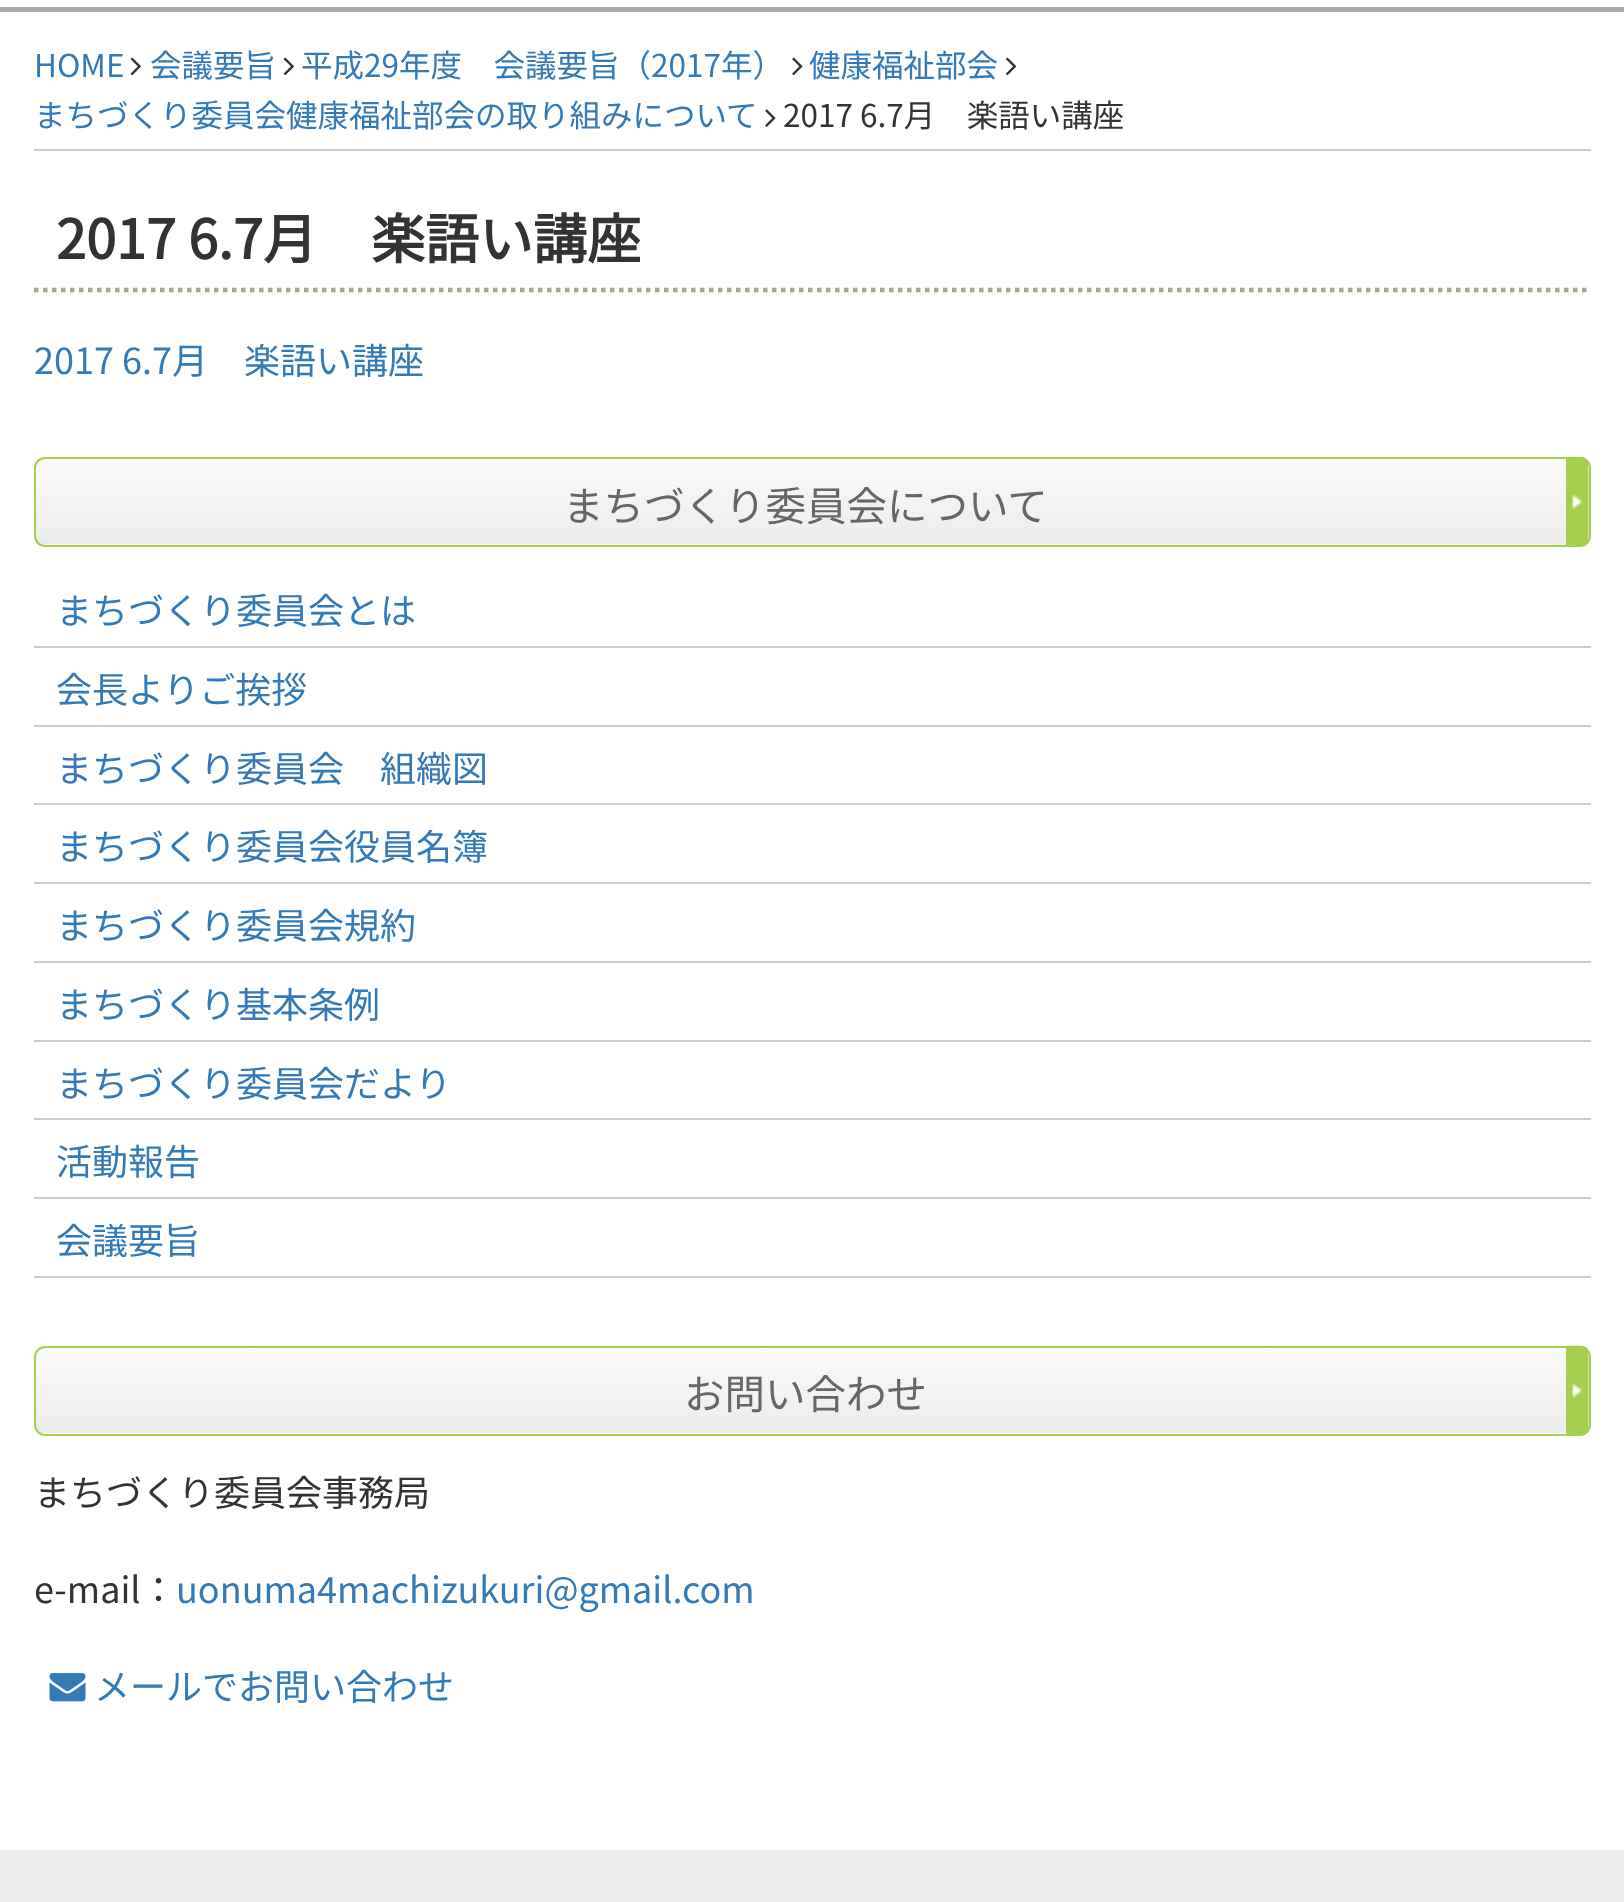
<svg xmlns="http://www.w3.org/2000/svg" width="1624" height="1902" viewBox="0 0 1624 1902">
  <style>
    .t1 { font: 31.5px Noto Sans CJK JP; fill: #337ab7; }
    .t2 { font: 31.5px Noto Sans CJK JP; fill: #333; }
    .t3 { font: bold 54px Noto Sans CJK JP; fill: #333; }
    .t4 { font: 36px Noto Sans CJK JP; fill: #337ab7; }
    .t5 { font: 40.5px Noto Sans CJK JP; fill: #666; }
    .t6 { font: 36px Noto Sans CJK JP; fill: #333; }
  </style>
  <rect width="100%" height="100%" fill="#fff"/>
  <rect x="0" y="7" width="1624" height="5" fill="#aaa"/>
  <rect x="34" y="149" width="1557" height="2" fill="#ccc"/>
  <text x="34" y="77" class="t1">HOME</text>
  <image x="130" y="57" width="11" height="19" href="images/1.png"/>
  <text x="150" y="77" class="t1">会議要旨</text>
  <image x="283" y="57" width="11" height="19" href="images/1.png"/>
  <text x="301" y="77" class="t1">平成29年度　会議要旨（2017年）</text>
  <image x="792" y="57" width="11" height="19" href="images/2.png"/>
  <text x="809" y="77" class="t1">健康福祉部会</text>
  <image x="1006" y="57" width="11" height="19" href="images/3.png"/>
  <text x="34" y="127" class="t1">まちづくり委員会健康福祉部会の取り組みについて</text>
  <image x="765" y="109" width="11" height="18" href="images/4.png"/>
  <text x="783" y="127" class="t2">2017 6.7月　楽語い講座</text>
  <path d="M34 290H1591" fill="none" stroke="#a9a78b" stroke-width="4.5" stroke-dasharray="4.5 4.5"/>
  <text x="56" y="259" class="t3">2017 6.7月　楽語い講座</text>
  <text x="34" y="374" class="t4">2017 6.7月　楽語い講座</text>
  <image x="36" y="456" width="1553" height="91" href="images/5.png"/>
  <rect x="35" y="458" width="1555" height="88" rx="10" fill="none" stroke="#a6cf50" stroke-width="2"/>
  <text x="563" y="521" class="t5">まちづくり委員会について</text>
  <rect x="34" y="646" width="1557" height="2" fill="#ccc"/>
  <text x="56" y="624" class="t4">まちづくり委員会とは</text>
  <rect x="34" y="725" width="1557" height="2" fill="#ccc"/>
  <text x="56" y="703" class="t4">会長よりご挨拶</text>
  <rect x="34" y="803" width="1557" height="2" fill="#ccc"/>
  <text x="56" y="782" class="t4">まちづくり委員会　組織図</text>
  <rect x="34" y="882" width="1557" height="2" fill="#ccc"/>
  <text x="56" y="860" class="t4">まちづくり委員会役員名簿</text>
  <rect x="34" y="961" width="1557" height="2" fill="#ccc"/>
  <text x="56" y="939" class="t4">まちづくり委員会規約</text>
  <rect x="34" y="1040" width="1557" height="2" fill="#ccc"/>
  <text x="56" y="1018" class="t4">まちづくり基本条例</text>
  <rect x="34" y="1118" width="1557" height="2" fill="#ccc"/>
  <text x="56" y="1097" class="t4">まちづくり委員会だより</text>
  <rect x="34" y="1197" width="1557" height="2" fill="#ccc"/>
  <text x="56" y="1175" class="t4">活動報告</text>
  <rect x="34" y="1276" width="1557" height="2" fill="#ccc"/>
  <text x="56" y="1254" class="t4">会議要旨</text>
  <image x="36" y="1345" width="1553" height="91" href="images/6.png"/>
  <rect x="35" y="1347" width="1555" height="88" rx="10" fill="none" stroke="#a6cf50" stroke-width="2"/>
  <text x="684" y="1409" class="t5">お問い合わせ</text>
  <text x="34" y="1506" class="t6">まちづくり委員会事務局</text>
  <text x="34" y="1603" class="t6">e-mail：</text>
  <text x="176" y="1603" class="t4">uonuma4machizukuri@gmail.com</text>
  <image x="49" y="1673" width="37" height="29" href="images/7.png"/>
  <text x="94" y="1700" class="t4">メールでお問い合わせ</text>
  <rect x="0" y="1850" width="1624" height="52" fill="#eee"/>
</svg>
